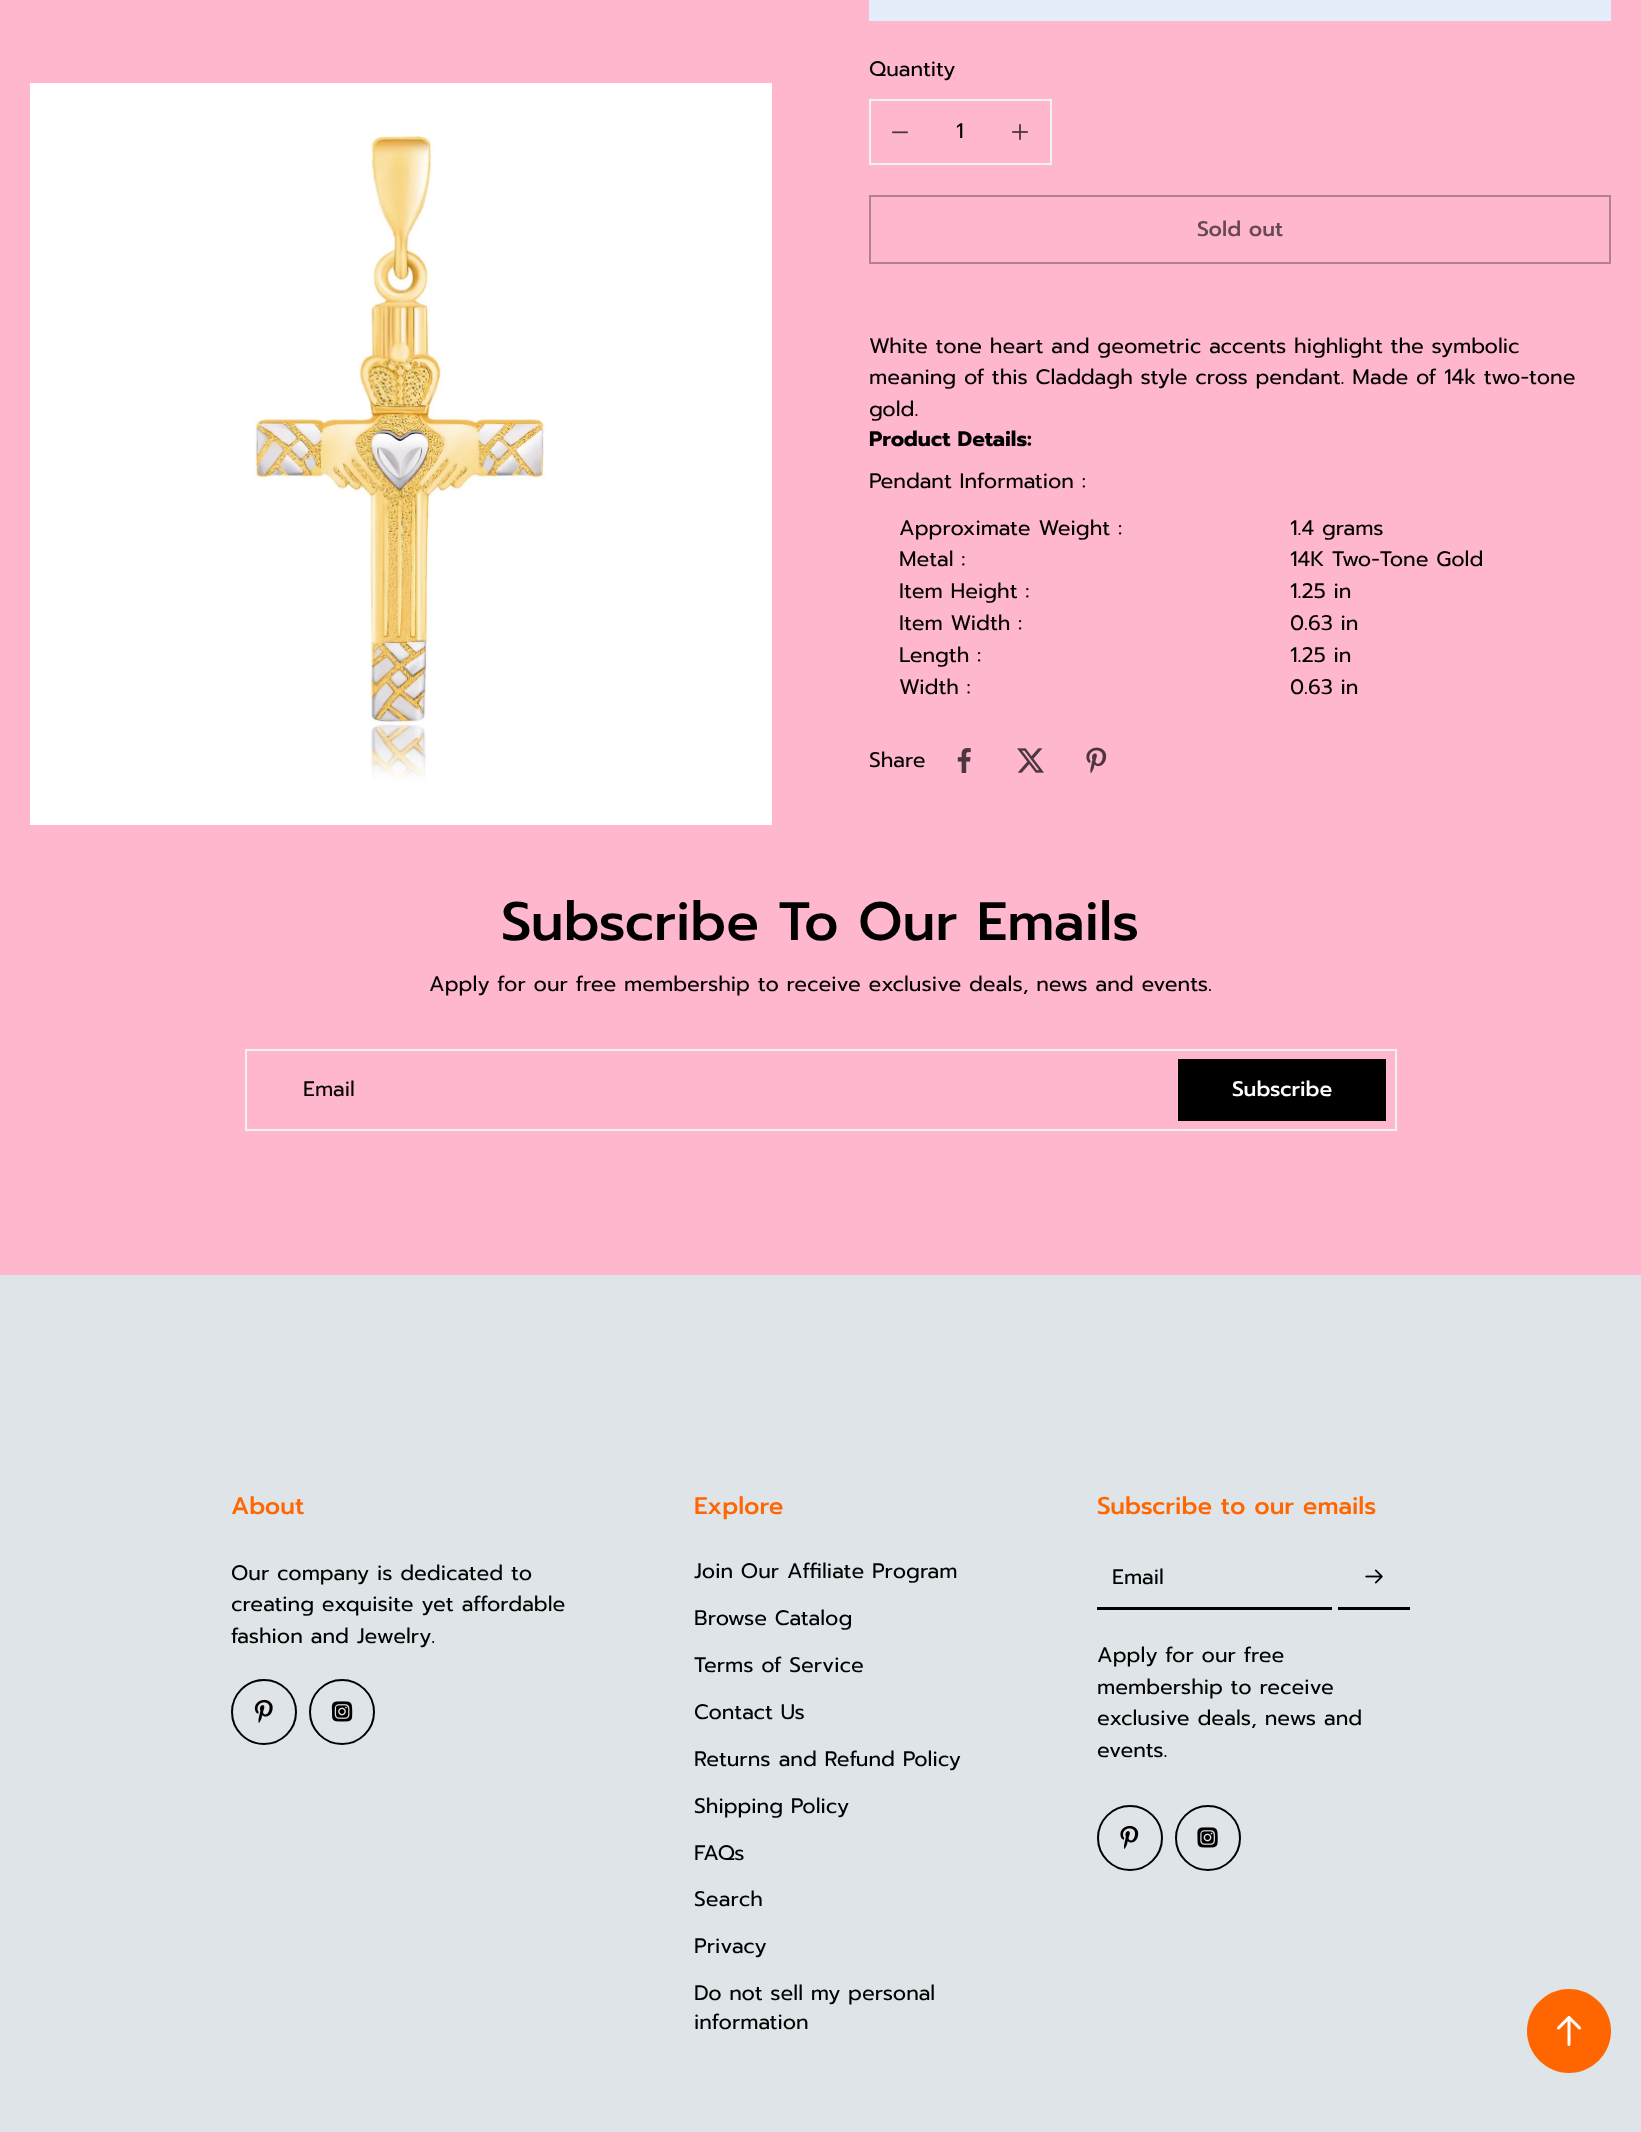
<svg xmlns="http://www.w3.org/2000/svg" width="1641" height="2132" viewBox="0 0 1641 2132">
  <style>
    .t1 { font: 21px Prompt; fill: #000; }
    .t2 { font: 500 21px Prompt; fill: #664952; }
    .t3 { font: bold 21px Prompt; fill: #000; }
    .t4 { font: 500 54px Prompt; fill: #000; }
    .t5 { font: 500 21px Prompt; fill: #fff; }
    .t6 { font: 500 24.1px Prompt; fill: #f60; }
  </style>
  <rect width="100%" height="100%" fill="#ffb7ce"/>
  <image x="30" y="83" width="742" height="742" href="images/1.png"/>
  <rect x="869" y="0" width="742" height="21" fill="#e4edfa"/>
  <text x="869" y="76" class="t1">Quantity</text>
  <rect x="870" y="100" width="181" height="64" fill="none" stroke="#f2f2f2" stroke-width="2"/>
  <image x="892" y="131" width="16" height="3" href="images/2.png"/>
  <text x="956" y="138" class="t1">1</text>
  <image x="1012" y="124" width="16" height="16" href="images/3.png"/>
  <rect x="870" y="196" width="740" height="67" fill="none" stroke="#b38090" stroke-width="2"/>
  <text x="1197" y="236" class="t2">Sold out</text>
  <text x="869" y="353" class="t1">White tone heart and geometric accents highlight the symbolic</text>
  <text x="869" y="384" class="t1">meaning of this Claddagh style cross pendant. Made of 14k two-tone</text>
  <text x="869" y="416" class="t1">gold.</text>
  <text x="869" y="446" class="t3">Product Details:</text>
  <text x="869" y="488" class="t1">Pendant Information :</text>
  <text x="899" y="535" class="t1">Approximate Weight :</text>
  <text x="1290" y="535" class="t1">1.4 grams</text>
  <text x="899" y="566" class="t1">Metal :</text>
  <text x="1290" y="566" class="t1">14K Two-Tone Gold</text>
  <text x="899" y="598" class="t1">Item Height :</text>
  <text x="1290" y="598" class="t1">1.25 in</text>
  <text x="899" y="630" class="t1">Item Width :</text>
  <text x="1290" y="630" class="t1">0.63 in</text>
  <text x="899" y="662" class="t1">Length :</text>
  <text x="1290" y="662" class="t1">1.25 in</text>
  <text x="899" y="694" class="t1">Width :</text>
  <text x="1290" y="694" class="t1">0.63 in</text>
  <text x="869" y="767" class="t1">Share</text>
  <image x="957" y="748" width="14" height="25" href="images/4.png"/>
  <image x="1017" y="748" width="27" height="25" href="images/5.png"/>
  <image x="1086" y="747" width="21" height="27" href="images/6.png"/>
  <text x="501" y="940" class="t4">Subscribe To Our Emails</text>
  <text x="429" y="991" class="t1">Apply for our free membership to receive exclusive deals, news and events.</text>
  <rect x="246" y="1050" width="1150" height="80" fill="none" stroke="#f2f2f2" stroke-width="2"/>
  <text x="303" y="1096" class="t1">Email</text>
  <rect x="1178" y="1059" width="208" height="62" fill="#000"/>
  <text x="1232" y="1096" class="t5">Subscribe</text>
  <rect x="0" y="1275" width="1641" height="857" fill="#dee4e7"/>
  <text x="231" y="1514" class="t6">About</text>
  <text x="231" y="1580" class="t1">Our company is dedicated to</text>
  <text x="231" y="1611" class="t1">creating exquisite yet affordable</text>
  <text x="231" y="1643" class="t1">fashion and Jewelry.</text>
  <circle cx="264" cy="1712" r="32" fill="none" stroke="#000" stroke-width="2"/>
  <image x="254" y="1699" width="19" height="24" href="images/7.png"/>
  <circle cx="342" cy="1712" r="32" fill="none" stroke="#000" stroke-width="2"/>
  <image x="331" y="1701" width="22" height="21" href="images/8.png"/>
  <text x="694" y="1514" class="t6">Explore</text>
  <text x="694" y="1578" class="t1">Join Our Affiliate Program</text>
  <text x="694" y="1625" class="t1">Browse Catalog</text>
  <text x="694" y="1672" class="t1">Terms of Service</text>
  <text x="694" y="1719" class="t1">Contact Us</text>
  <text x="694" y="1766" class="t1">Returns and Refund Policy</text>
  <text x="694" y="1813" class="t1">Shipping Policy</text>
  <text x="694" y="1860" class="t1">FAQs</text>
  <text x="694" y="1906" class="t1">Search</text>
  <text x="694" y="1953" class="t1">Privacy</text>
  <text x="694" y="2000" class="t1">Do not sell my personal</text>
  <text x="694" y="2029" class="t1">information</text>
  <text x="1097" y="1514" class="t6">Subscribe to our emails</text>
  <text x="1112" y="1584" class="t1">Email</text>
  <rect x="1097" y="1607" width="235" height="3" fill="#000"/>
  <rect x="1338" y="1607" width="72" height="3" fill="#000"/>
  <image x="1365" y="1569" width="18" height="15" href="images/9.png"/>
  <text x="1097" y="1662" class="t1">Apply for our free</text>
  <text x="1097" y="1694" class="t1">membership to receive</text>
  <text x="1097" y="1725" class="t1">exclusive deals, news and</text>
  <text x="1097" y="1757" class="t1">events.</text>
  <circle cx="1130" cy="1838" r="32" fill="none" stroke="#000" stroke-width="2"/>
  <image x="1120" y="1825" width="19" height="24" href="images/10.png"/>
  <circle cx="1208" cy="1838" r="32" fill="none" stroke="#000" stroke-width="2"/>
  <image x="1197" y="1827" width="21" height="21" href="images/11.png"/>
  <path d="M1527 2031C1527 2008 1546 1989 1569 1989C1592 1989 1611 2008 1611 2031C1611 2054 1592 2073 1569 2073C1546 2073 1527 2054 1527 2031Z" fill="#f60"/>
  <image x="1557" y="2016" width="24" height="30" href="images/12.png"/>
</svg>
